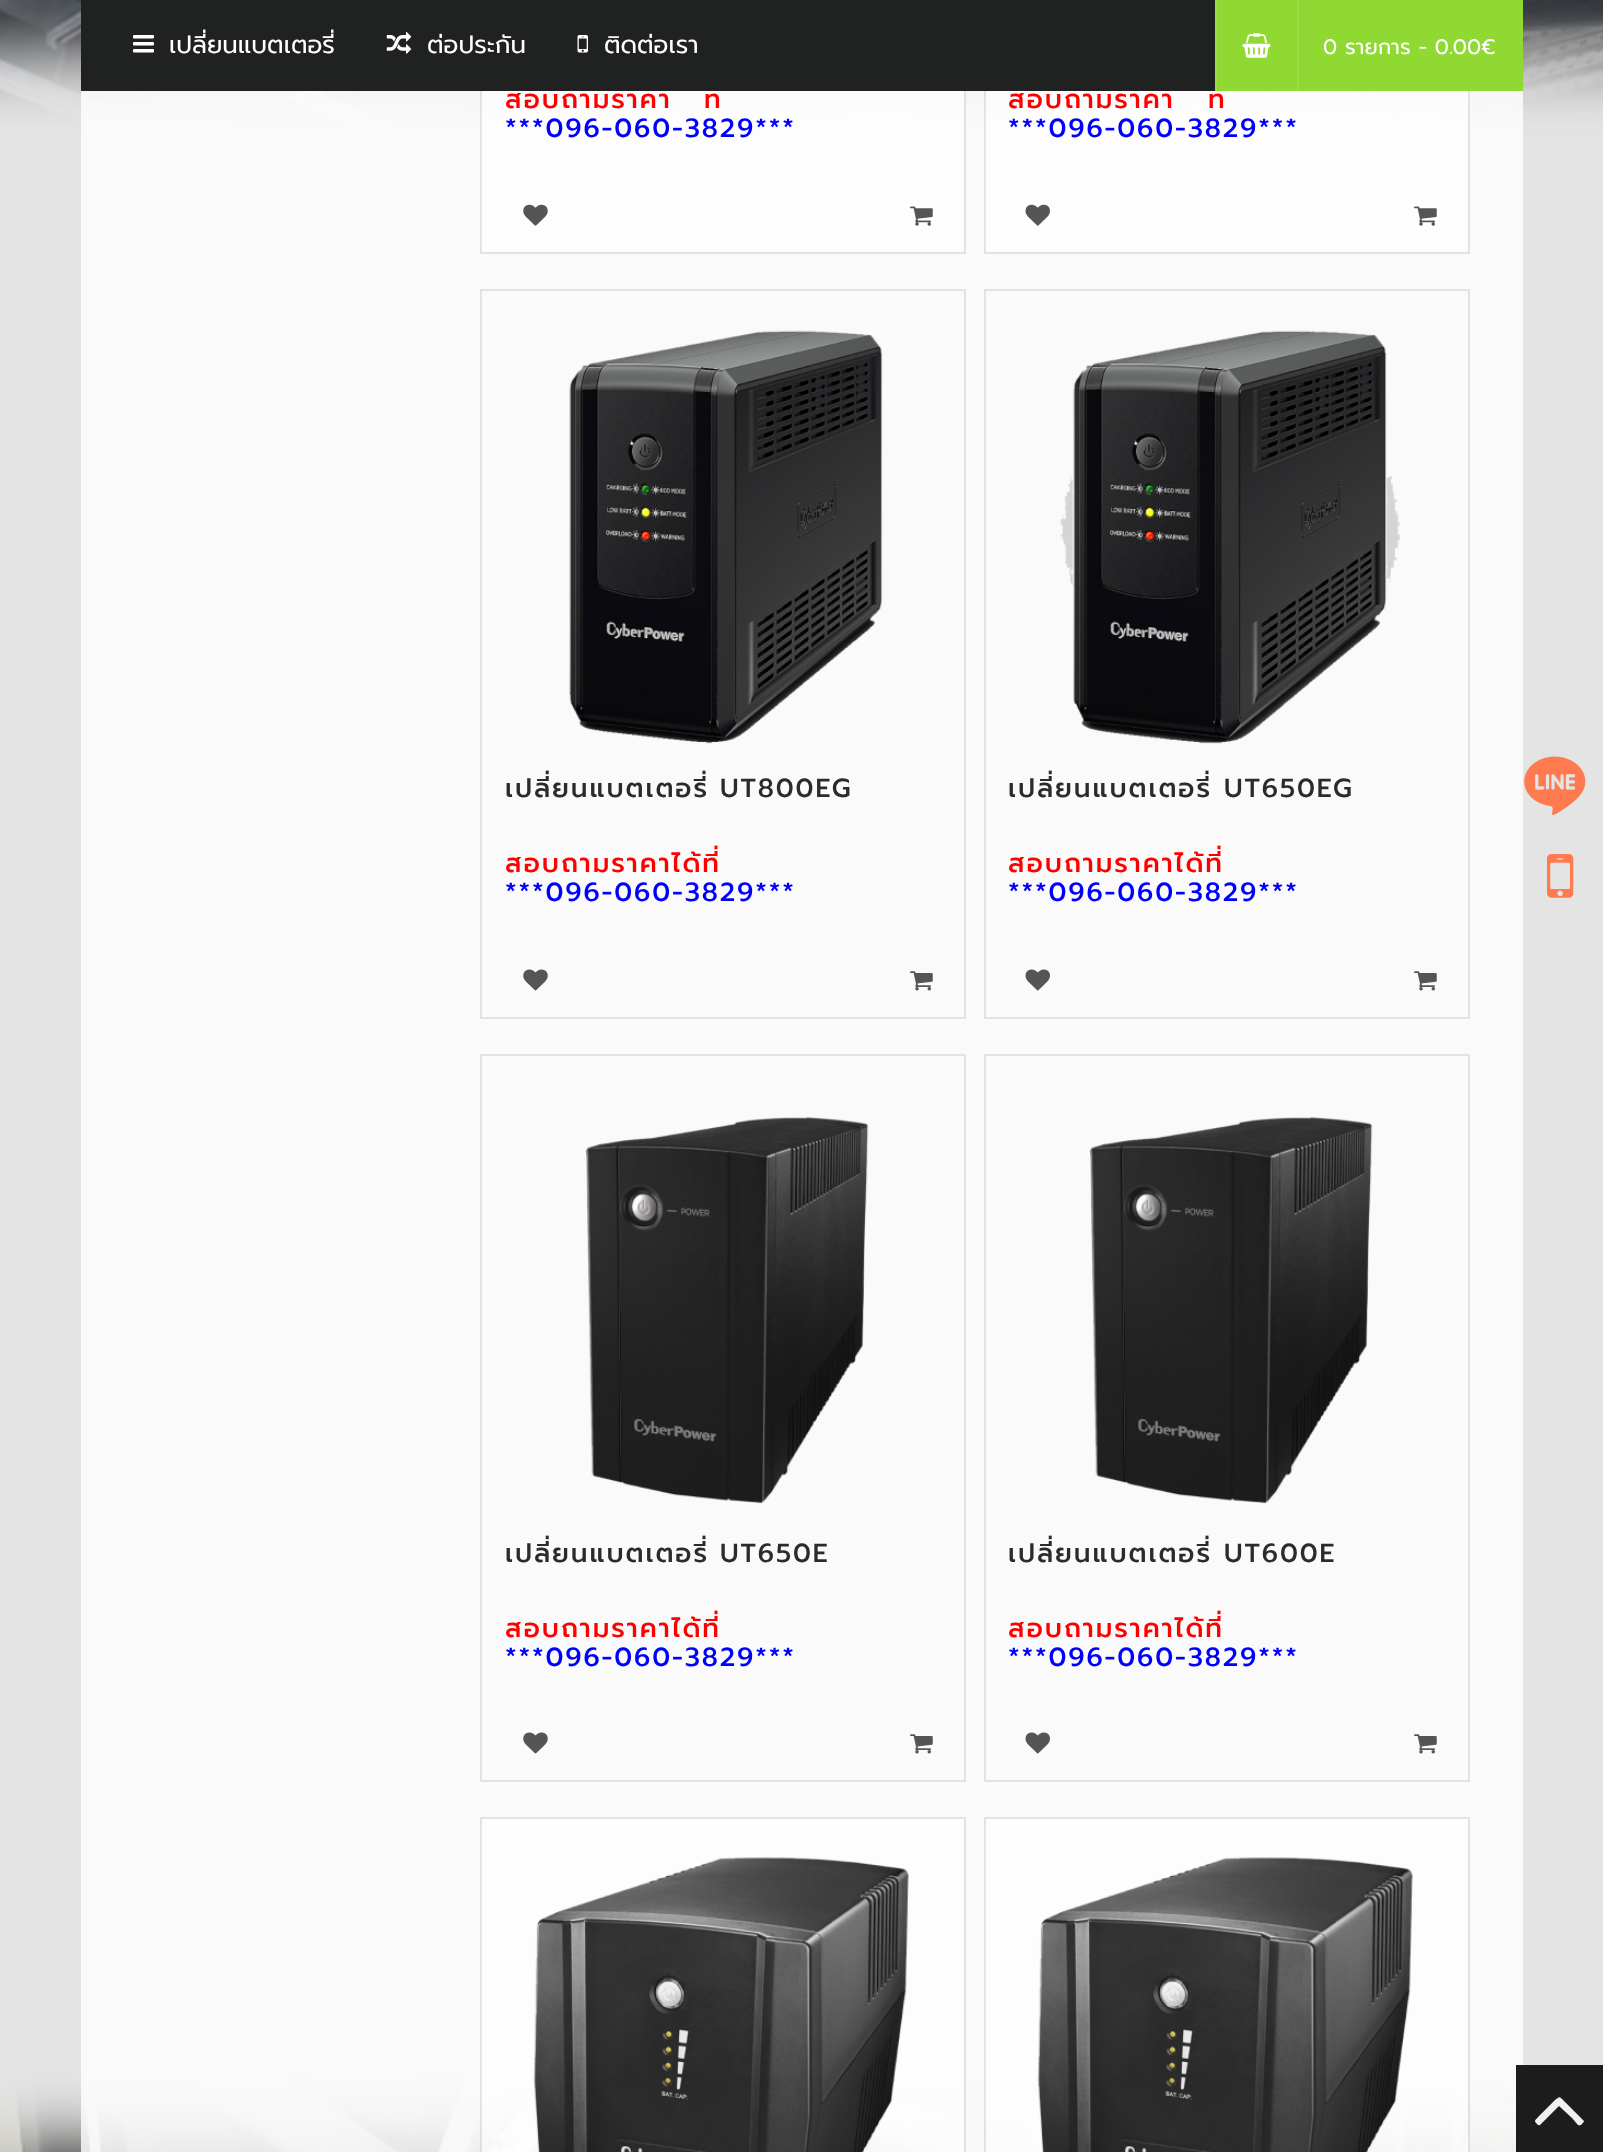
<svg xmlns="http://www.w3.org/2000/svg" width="1603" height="2152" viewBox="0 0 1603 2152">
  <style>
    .t1 { font: 24.5px Prompt; fill: #fff; }
    .t2 { font: 21px Prompt; fill: #fff; }
    .t3 { font: 500 26.25px Prompt; letter-spacing: 1.9px; fill: #f00; }
    .t4 { font: 500 26.25px Prompt; letter-spacing: 1.9px; fill: #00f; }
    .t5 { font: 500 26.25px Prompt; letter-spacing: 1.9px; fill: #2b2b2b; }
  </style>
  <rect width="100%" height="100%" fill="#fff"/>
  <image x="0" y="0" width="1603" height="2152" href="images/1.png"/>
  <rect x="81" y="91" width="1442" height="2061" fill="#ffffffcc"/>
  <rect x="480" y="91" width="486" height="163" fill="#ffffff99"/>
  <rect x="481" y="-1" width="484" height="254" fill="none" stroke="#0000001a" stroke-width="2"/>
  <rect x="984" y="91" width="486" height="163" fill="#ffffff99"/>
  <rect x="985" y="-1" width="484" height="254" fill="none" stroke="#0000001a" stroke-width="2"/>
  <rect x="81" y="0" width="1134" height="91" fill="#202121"/>
  <image x="133" y="35" width="21" height="18" href="images/2.png"/>
  <text x="169" y="53" class="t1">เปลี่ยนแบตเตอรี่</text>
  <image x="386" y="32" width="26" height="22" href="images/3.png"/>
  <text x="427" y="53" class="t1">ต่อประกัน</text>
  <image x="577" y="35" width="11" height="18" href="images/4.png"/>
  <text x="604" y="53" class="t1">ติดต่อเรา</text>
  <rect x="1217" y="0" width="306" height="91" fill="#90d932"/>
  <rect x="1215" y="0" width="2" height="91" fill="#9adc44"/>
  <rect x="1297" y="0" width="2" height="91" fill="#9adc44"/>
  <image x="1242" y="33" width="29" height="25" href="images/5.png"/>
  <text x="1323" y="54" class="t2">0 รายการ - 0.00€</text>
  <text x="505" y="108" class="t3">สอบถามราคา</text>
  <text x="704" y="108" class="t3">ท</text>
  <text x="505" y="137" class="t4">***096-060-3829***</text>
  <image x="523" y="204" width="25" height="22" href="images/6.png"/>
  <image x="910" y="206" width="23" height="20" href="images/7.png"/>
  <text x="1008" y="108" class="t3">สอบถามราคา</text>
  <text x="1208" y="108" class="t3">ท</text>
  <text x="1008" y="137" class="t4">***096-060-3829***</text>
  <image x="1025" y="204" width="25" height="22" href="images/8.png"/>
  <image x="1414" y="206" width="23" height="20" href="images/7.png"/>
  <rect x="481" y="290" width="484" height="728" fill="none" stroke="#e3e3e3" stroke-width="2"/>
  <image x="569" y="330" width="314" height="414" href="images/9.png"/>
  <text x="505" y="797" class="t5">เปลี่ยนแบตเตอรี่</text>
  <text x="720" y="797" class="t5">UT800EG</text>
  <text x="505" y="872" class="t3">สอบถามราคาได้ที่</text>
  <text x="505" y="901" class="t4">***096-060-3829***</text>
  <image x="523" y="969" width="25" height="22" href="images/10.png"/>
  <image x="910" y="971" width="23" height="20" href="images/11.png"/>
  <rect x="985" y="290" width="484" height="728" fill="none" stroke="#e3e3e3" stroke-width="2"/>
  <image x="1060" y="330" width="340" height="414" href="images/12.png"/>
  <text x="1008" y="797" class="t5">เปลี่ยนแบตเตอรี่</text>
  <text x="1224" y="797" class="t5">UT650EG</text>
  <text x="1008" y="872" class="t3">สอบถามราคาได้ที่</text>
  <text x="1008" y="901" class="t4">***096-060-3829***</text>
  <image x="1025" y="969" width="25" height="22" href="images/13.png"/>
  <image x="1414" y="971" width="23" height="20" href="images/11.png"/>
  <rect x="481" y="1055" width="484" height="726" fill="none" stroke="#e3e3e3" stroke-width="2"/>
  <image x="585" y="1117" width="284" height="387" href="images/14.png"/>
  <text x="505" y="1562" class="t5">เปลี่ยนแบตเตอรี่</text>
  <text x="720" y="1562" class="t5">UT650E</text>
  <text x="505" y="1637" class="t3">สอบถามราคาได้ที่</text>
  <text x="505" y="1666" class="t4">***096-060-3829***</text>
  <image x="523" y="1732" width="25" height="22" href="images/10.png"/>
  <image x="910" y="1734" width="23" height="20" href="images/11.png"/>
  <rect x="985" y="1055" width="484" height="726" fill="none" stroke="#e3e3e3" stroke-width="2"/>
  <image x="1089" y="1117" width="284" height="387" href="images/15.png"/>
  <text x="1008" y="1562" class="t5">เปลี่ยนแบตเตอรี่</text>
  <text x="1224" y="1562" class="t5">UT600E</text>
  <text x="1008" y="1637" class="t3">สอบถามราคาได้ที่</text>
  <text x="1008" y="1666" class="t4">***096-060-3829***</text>
  <image x="1025" y="1732" width="25" height="22" href="images/13.png"/>
  <image x="1414" y="1734" width="23" height="20" href="images/11.png"/>
  <rect x="480" y="1817" width="486" height="335" fill="#ffffff99"/>
  <rect x="481" y="1818" width="484" height="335" fill="none" stroke="#0000001a" stroke-width="2"/>
  <image x="533" y="1857" width="376" height="295" href="images/16.png"/>
  <rect x="984" y="1817" width="486" height="335" fill="#ffffff99"/>
  <rect x="985" y="1818" width="484" height="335" fill="none" stroke="#0000001a" stroke-width="2"/>
  <image x="1037" y="1857" width="376" height="295" href="images/17.png"/>
  <image x="1524" y="756" width="62" height="59" href="images/18.png"/>
  <image x="1547" y="854" width="27" height="44" href="images/19.png"/>
  <rect x="1516" y="2065" width="87" height="87" fill="#1c1c1c"/>
  <path d="M1583 2120C1585 2121 1583 2123 1582 2124C1578 2128 1577 2123 1572 2118L1559 2106L1540 2125C1539 2126 1537 2124 1537 2124C1533 2120 1536 2120 1539 2116L1554 2101C1560 2096 1559 2096 1564 2101Z" fill="#f0f0f0"/>
</svg>
